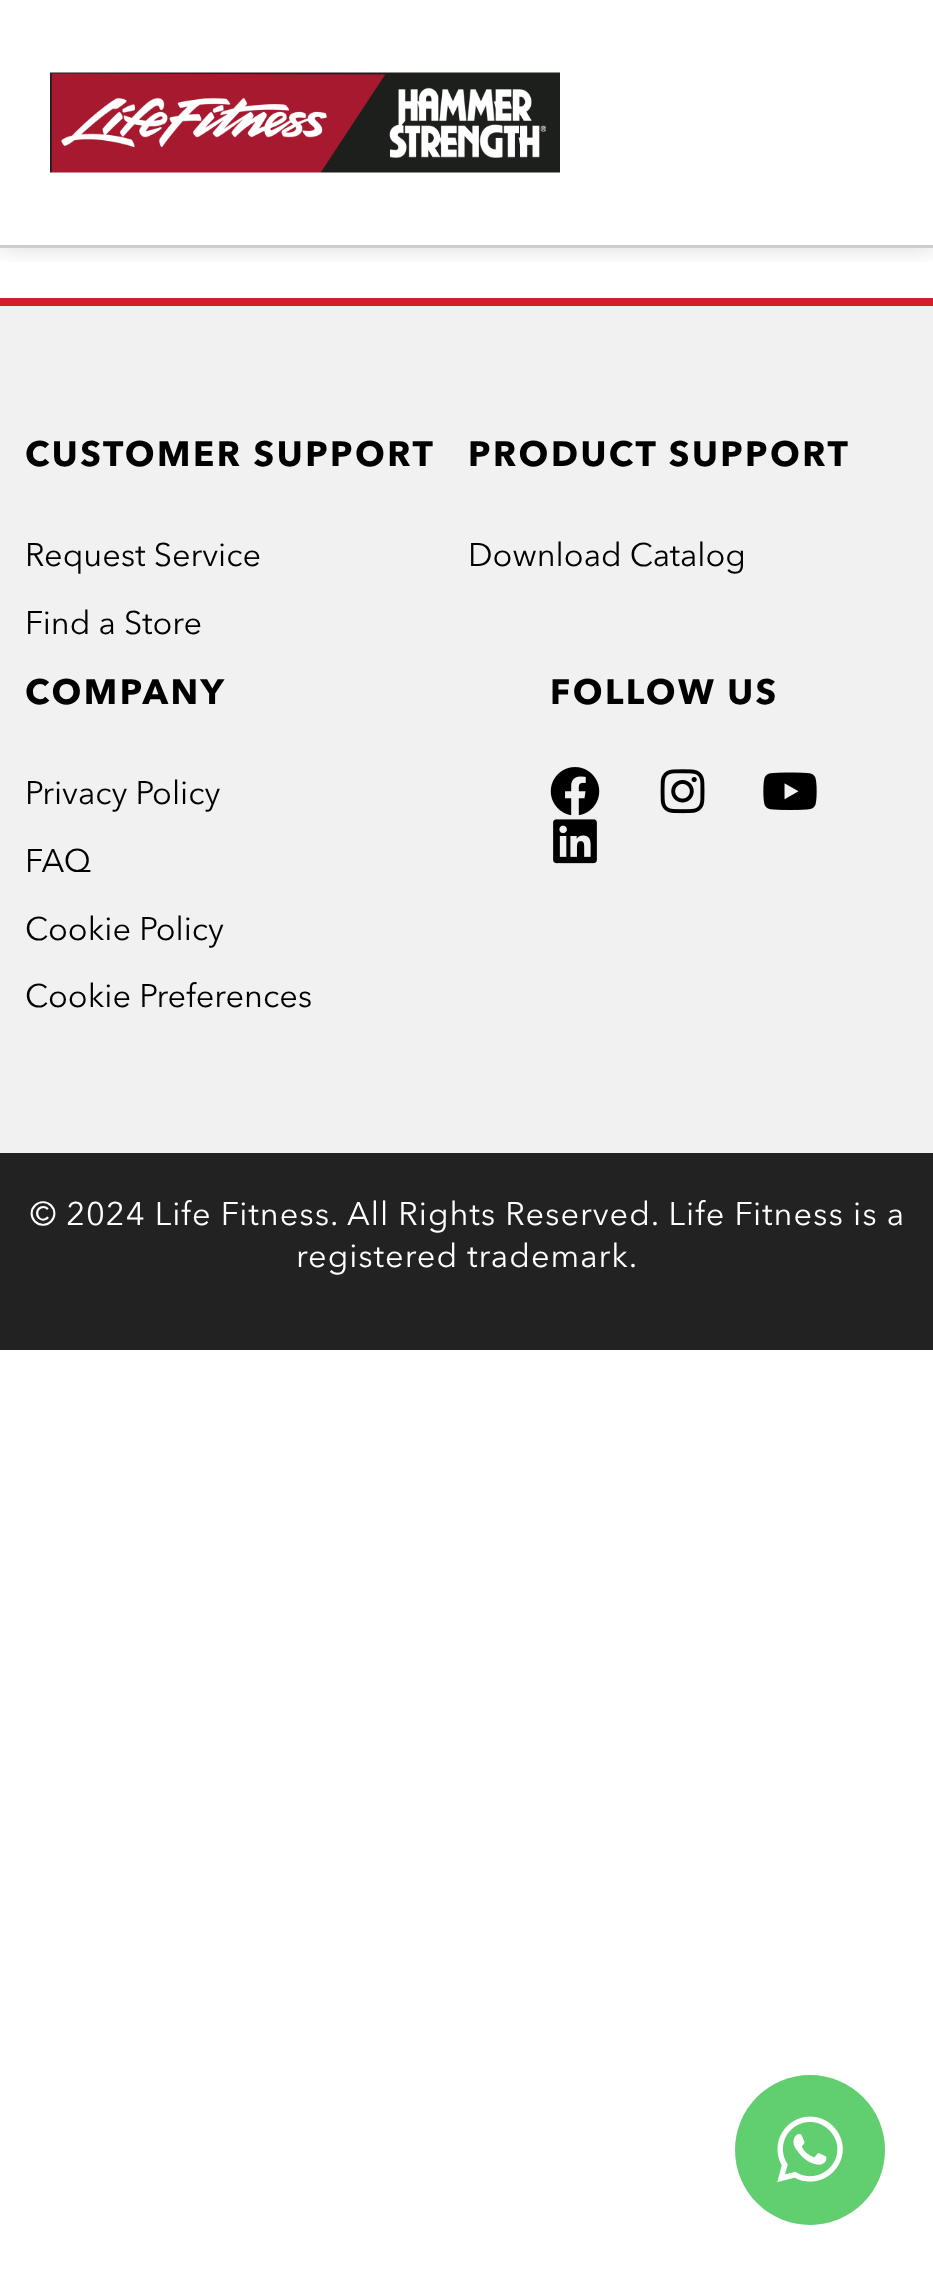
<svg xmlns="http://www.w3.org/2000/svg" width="933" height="2276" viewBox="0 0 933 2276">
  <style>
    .t1 { font: bold 35px Avenir Next; letter-spacing: 2.5px; fill: #000; }
    .t2 { font: 32.5px Avenir Next; fill: #000; }
    .t3 { font: 32.5px Avenir Next; letter-spacing: 1px; fill: #fff; }
  </style>
  <defs>
    <clipPath id="clip1"><rect x="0" y="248" width="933" height="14"/></clipPath>
  </defs>
  <rect width="100%" height="100%" fill="#fff"/>
  <g clip-path="url(#clip1)">
    <rect x="0" y="0" width="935" height="248" fill="#00000026" filter="blur(12.5px)"/>
  </g>
  <rect x="0" y="245" width="933" height="3" fill="#ccc"/>
  <image x="50" y="72" width="510" height="101" href="images/1.png"/>
  <rect x="0" y="306" width="933" height="847" fill="#f1f1f1"/>
  <rect x="0" y="298" width="933" height="8" fill="#d01f2d"/>
  <text x="25" y="466" class="t1">CUSTOMER SUPPORT</text>
  <text x="25" y="566" class="t2">Request Service</text>
  <text x="25" y="634" class="t2">Find a Store</text>
  <text x="468" y="466" class="t1">PRODUCT SUPPORT</text>
  <text x="468" y="566" class="t2">Download Catalog</text>
  <text x="25" y="704" class="t1">COMPANY</text>
  <text x="25" y="804" class="t2">Privacy Policy</text>
  <text x="25" y="872" class="t2">FAQ</text>
  <text x="25" y="940" class="t2">Cookie Policy</text>
  <text x="25" y="1007" class="t2">Cookie Preferences</text>
  <text x="550" y="704" class="t1">FOLLOW US</text>
  <image x="550" y="767" width="50" height="49" href="images/2.png"/>
  <image x="660" y="769" width="45" height="45" href="images/3.png"/>
  <image x="763" y="772" width="54" height="38" href="images/4.png"/>
  <image x="553" y="819" width="44" height="45" href="images/5.png"/>
  <circle cx="810" cy="2150" r="75" fill="#61ce70"/>
  <image x="777" y="2116" width="66" height="67" href="images/6.png"/>
  <rect x="0" y="1153" width="933" height="197" fill="#222"/>
  <text x="30" y="1225" class="t3">© 2024 Life Fitness. All Rights Reserved. Life Fitness is a</text>
  <text x="296" y="1267" class="t3">registered trademark.</text>
</svg>
